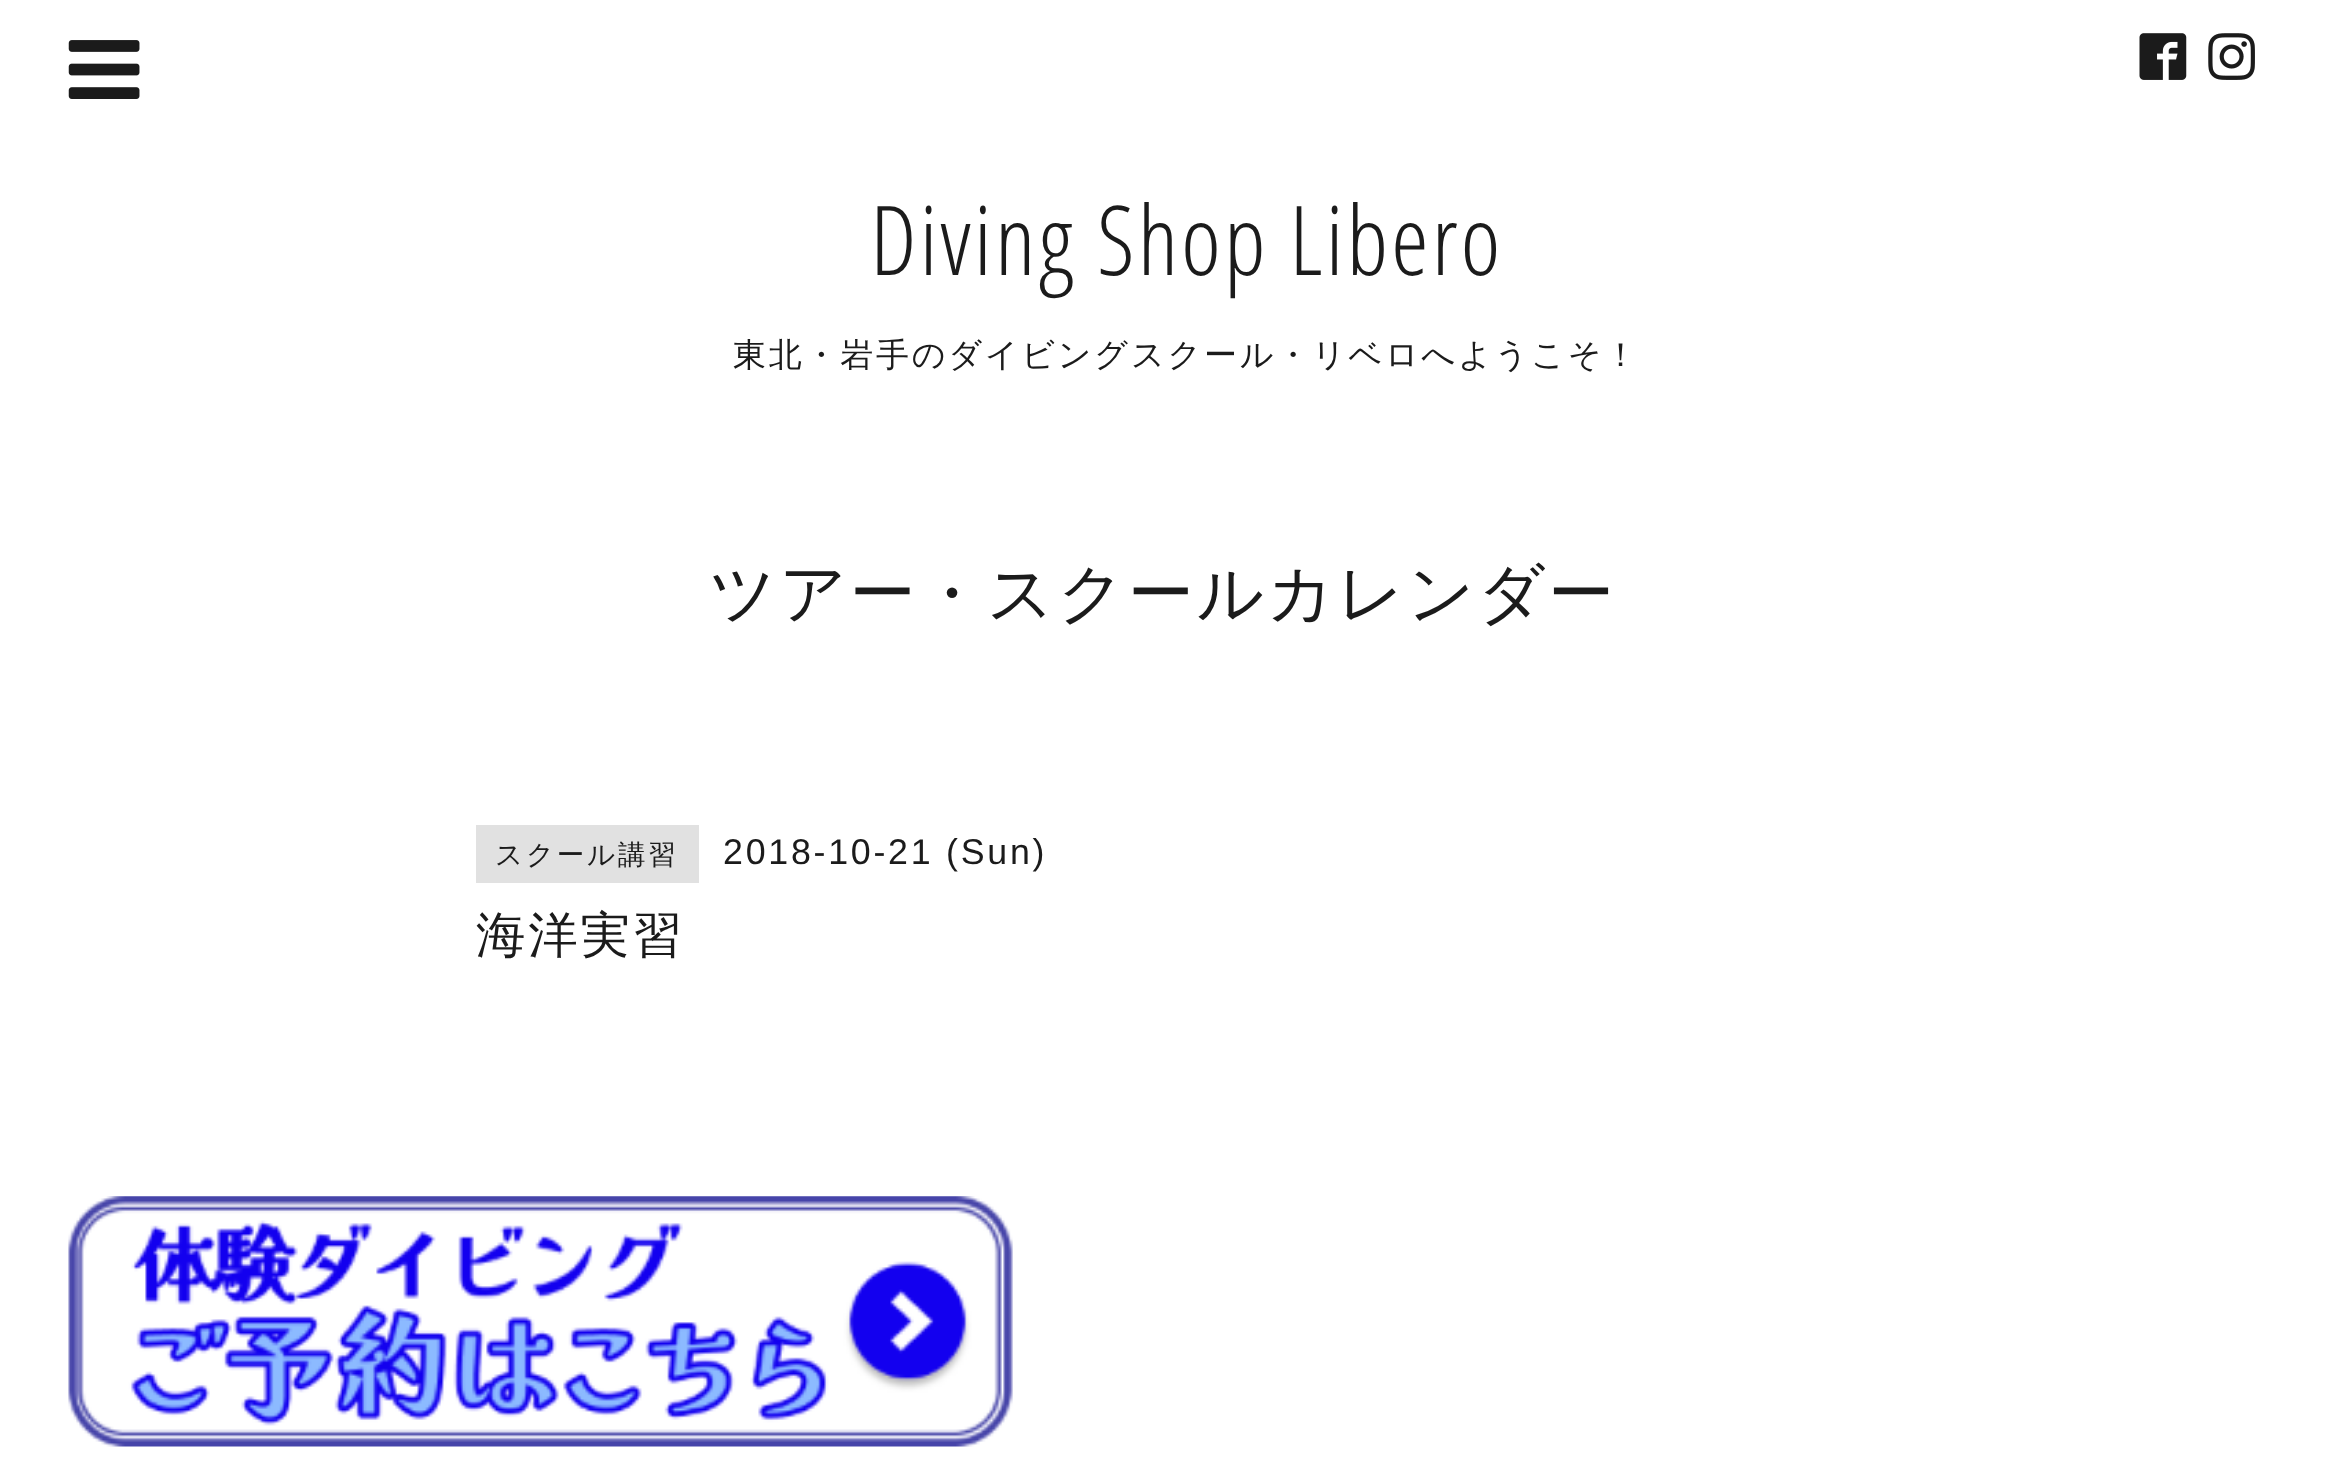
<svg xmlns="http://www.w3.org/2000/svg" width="2325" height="1467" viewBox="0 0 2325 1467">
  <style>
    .t1 { font: 300 96.25px Open Sans Condensed; letter-spacing: 2.75px; fill: #1b1b1b; }
    .t2 { font: 500 33px WenQuanYi Zen Hei; letter-spacing: 2.75px; fill: #1b1b1b; }
    .t3 { font: 500 66px WenQuanYi Zen Hei; letter-spacing: 2.75px; fill: #1b1b1b; }
    .t4 { font: 500 27.5px WenQuanYi Zen Hei; letter-spacing: 2.75px; fill: #1b1b1b; }
    .t5 { font: 35.75px Liberation Sans; letter-spacing: 2.75px; fill: #1b1b1b; }
    .t6 { font: 500 49.5px WenQuanYi Zen Hei; letter-spacing: 2.75px; fill: #1b1b1b; }
  </style>
  <rect width="100%" height="100%" fill="#fff"/>
  <image x="68" y="40" width="72" height="59" href="images/1.png"/>
  <image x="2139" y="33" width="48" height="47" href="images/2.png"/>
  <image x="2208" y="33" width="47" height="47" href="images/3.png"/>
  <text x="870" y="275" class="t1">Diving Shop Libero</text>
  <text x="733" y="366" class="t2">東北・岩手のダイビングスクール・リベロへようこそ！</text>
  <text x="709" y="616" class="t3">ツアー・スクールカレンダー</text>
  <rect x="476" y="825" width="223" height="58" fill="#e1e1e1"/>
  <text x="495" y="864" class="t4">スクール講習</text>
  <text x="723" y="864" class="t5">2018-10-21 (Sun)</text>
  <text x="476" y="952" class="t6">海洋実習</text>
  <image x="68" y="1196" width="945" height="251" href="images/4.png"/>
</svg>
